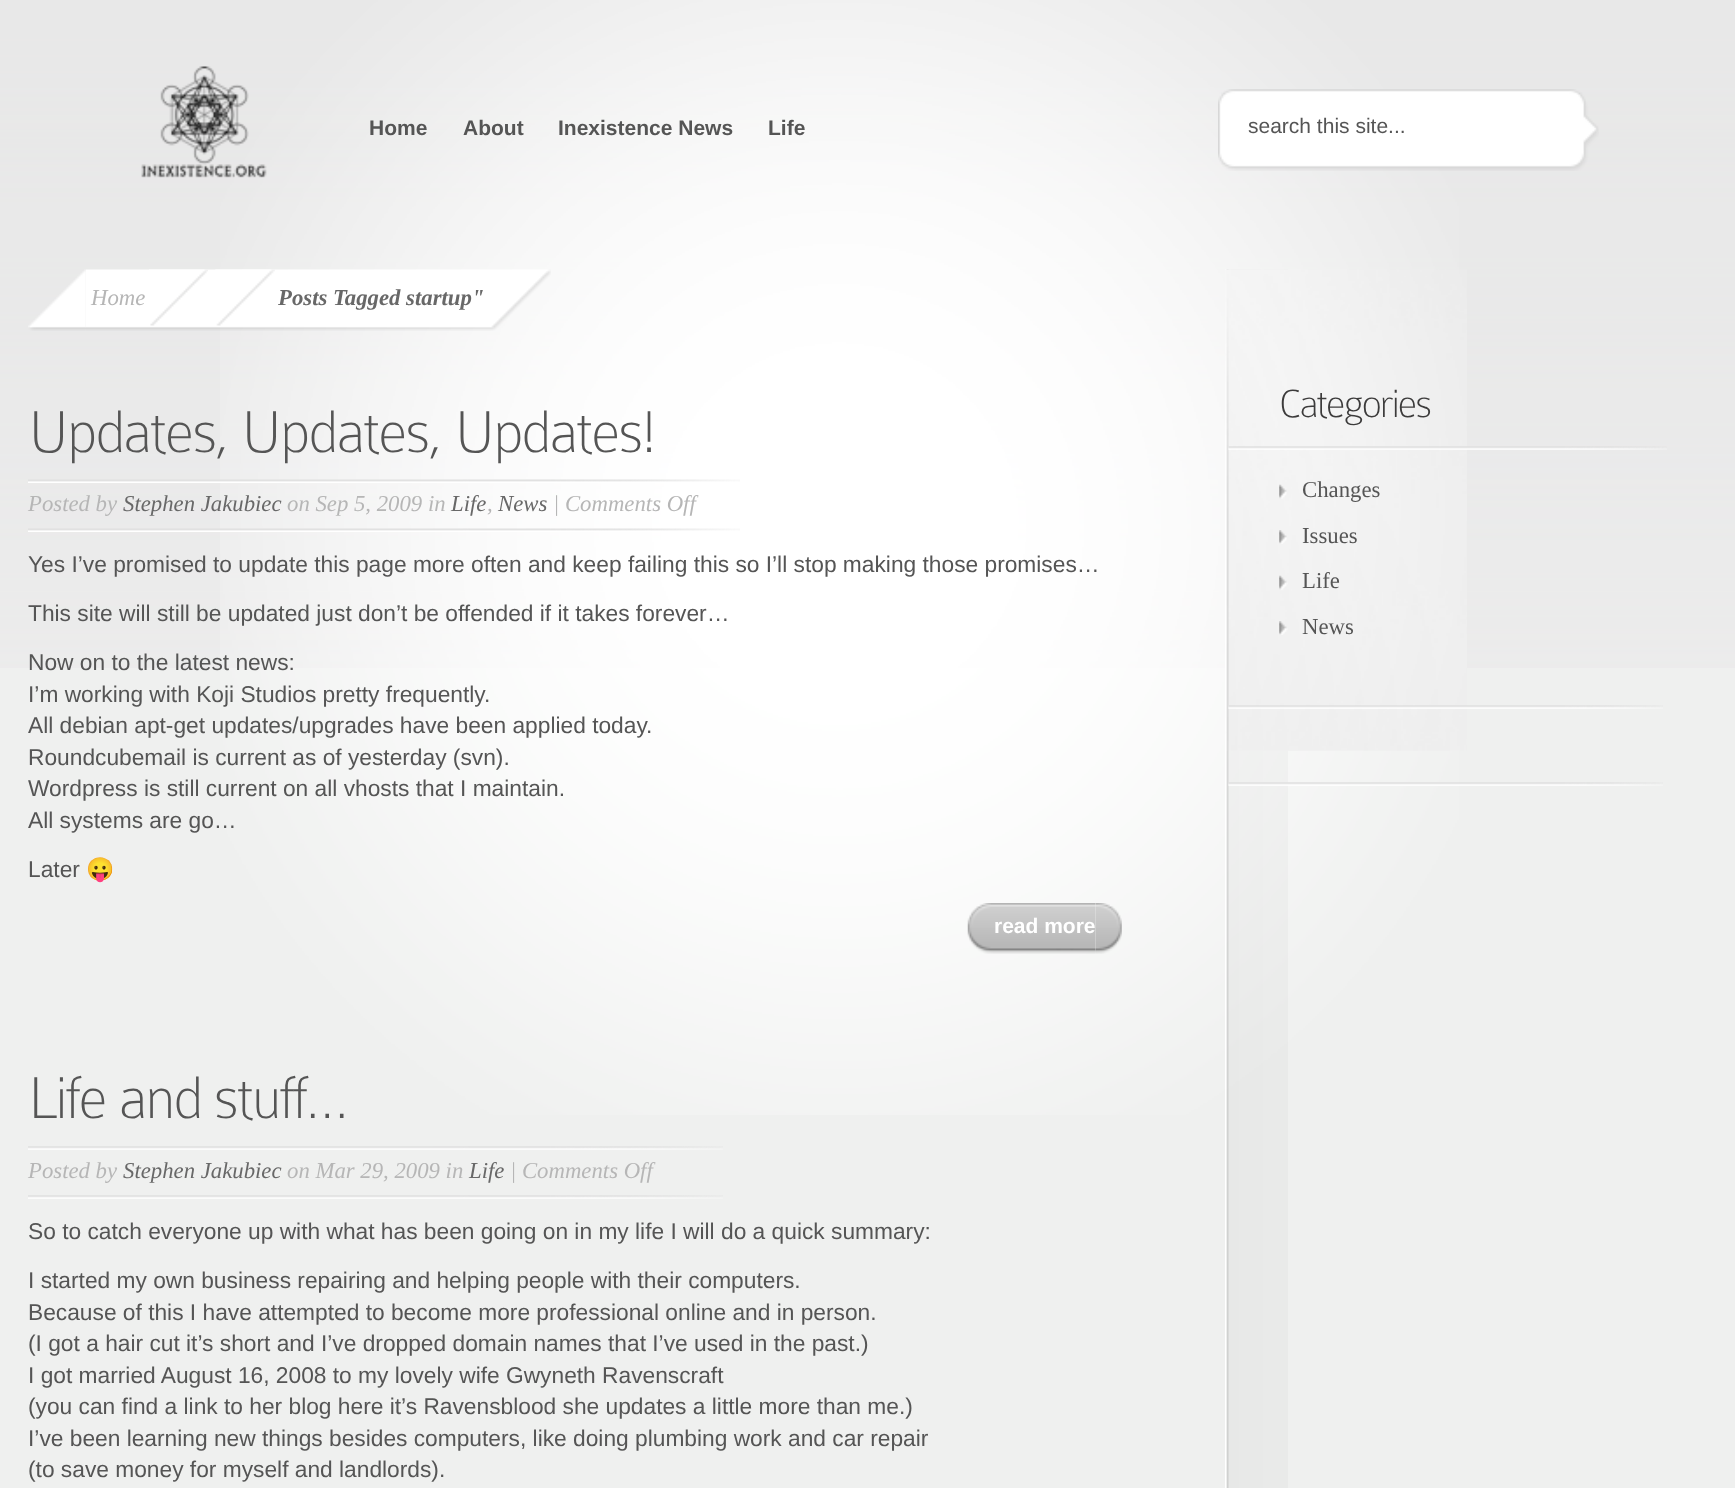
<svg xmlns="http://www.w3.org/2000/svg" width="1735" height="1488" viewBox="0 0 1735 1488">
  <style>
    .t1 { font: bold 21px Liberation Sans; fill: #555; }
    .t2 { font: 21px Liberation Sans; fill: #555; }
    .t3 { font: italic 22.75px Liberation Serif; fill: #b6b6b6; }
    .t4 { font: italic bold 22.75px Liberation Serif; fill: #686868; }
    .t5 { font: 100 63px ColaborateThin; letter-spacing: -1.75px; fill: #555; }
    .t6 { font: italic 22.75px Liberation Serif; fill: #686868; }
    .t7 { font: 22.75px Liberation Sans; fill: #555; }
    .t8 { font: 22.75px Noto Color Emoji; fill: #555; }
    .t9 { font: bold 21px Liberation Sans; fill: #fff; }
    .t10 { font: 100 42px ColaborateThin; letter-spacing: -1.75px; fill: #3c3b3b; }
    .t11 { font: 22.75px Liberation Serif; fill: #555; }
  </style>
  <rect width="100%" height="100%" fill="#eff0ef"/>
  <image x="0" y="0" width="1735" height="668" href="images/1.png"/>
  <image x="220" y="0" width="1239" height="1115" href="images/2.png"/>
  <image x="141" y="66" width="126" height="112" href="images/3.png"/>
  <text x="369" y="135" class="t1">Home</text>
  <text x="463" y="135" class="t1">About</text>
  <text x="558" y="135" class="t1">Inexistence News</text>
  <text x="768" y="135" class="t1">Life</text>
  <image x="1218" y="89" width="381" height="82" href="images/4.png"/>
  <text x="1248" y="133" class="t2">search this site...</text>
  <image x="1225" y="269" width="63" height="1219" href="images/5.png"/>
  <image x="1225" y="269" width="242" height="482" href="images/6.png"/>
  <image x="28" y="269" width="58" height="62" href="images/7.png"/>
  <image x="85" y="269" width="405" height="62" href="images/8.png"/>
  <text x="91" y="305" class="t3">Home</text>
  <image x="149" y="269" width="59" height="57" href="images/9.png"/>
  <image x="215" y="269" width="60" height="57" href="images/10.png"/>
  <text x="278" y="305" class="t4">Posts Tagged startup"</text>
  <image x="490" y="269" width="61" height="62" href="images/11.png"/>
  <text x="28" y="452" class="t5">Updates, Updates, Updates!</text>
  <image x="28" y="479" width="712" height="4" href="images/12.png"/>
  <image x="28" y="528" width="712" height="4" href="images/13.png"/>
  <text x="28" y="511" class="t3">Posted by</text>
  <text x="123" y="511" class="t6">Stephen Jakubiec</text>
  <text x="287" y="511" class="t3">on Sep 5, 2009 in</text>
  <text x="451" y="511" class="t6">Life</text>
  <text x="487" y="511" class="t3">,</text>
  <text x="498" y="511" class="t6">News</text>
  <text x="553" y="511" class="t3">| Comments Off</text>
  <text x="28" y="572" class="t7">Yes I’ve promised to update this page more often and keep failing this so I’ll stop making those promises…</text>
  <text x="28" y="621" class="t7">This site will still be updated just don’t be offended if it takes forever…</text>
  <text x="28" y="670" class="t7">Now on to the latest news:</text>
  <text x="28" y="702" class="t7">I’m working with Koji Studios pretty frequently.</text>
  <text x="28" y="733" class="t7">All debian apt-get updates/upgrades have been applied today.</text>
  <text x="28" y="765" class="t7">Roundcubemail is current as of yesterday (svn).</text>
  <text x="28" y="796" class="t7">Wordpress is still current on all vhosts that I maintain.</text>
  <text x="28" y="828" class="t7">All systems are go…</text>
  <text x="28" y="877" class="t7">Later</text>
  <text x="86" y="877" class="t8">😛</text>
  <image x="1095" y="903" width="27" height="51" href="images/14.png"/>
  <image x="967" y="903" width="129" height="51" href="images/15.png"/>
  <text x="994" y="933" class="t9">read more</text>
  <text x="28" y="1118" class="t5">Life and stuff…</text>
  <image x="28" y="1146" width="695" height="4" href="images/16.png"/>
  <image x="28" y="1195" width="695" height="4" href="images/16.png"/>
  <text x="28" y="1178" class="t3">Posted by</text>
  <text x="123" y="1178" class="t6">Stephen Jakubiec</text>
  <text x="287" y="1178" class="t3">on Mar 29, 2009 in</text>
  <text x="469" y="1178" class="t6">Life</text>
  <text x="510" y="1178" class="t3">| Comments Off</text>
  <text x="28" y="1239" class="t7">So to catch everyone up with what has been going on in my life I will do a quick summary:</text>
  <text x="28" y="1288" class="t7">I started my own business repairing and helping people with their computers.</text>
  <text x="28" y="1320" class="t7">Because of this I have attempted to become more professional online and in person.</text>
  <text x="28" y="1351" class="t7">(I got a hair cut it’s short and I’ve dropped domain names that I’ve used in the past.)</text>
  <text x="28" y="1383" class="t7">I got married August 16, 2008 to my lovely wife Gwyneth Ravenscraft</text>
  <text x="28" y="1414" class="t7">(you can find a link to her blog here it’s Ravensblood she updates a little more than me.)</text>
  <text x="28" y="1446" class="t7">I’ve been learning new things besides computers, like doing plumbing work and car repair</text>
  <text x="28" y="1477" class="t7">(to save money for myself and landlords).</text>
  <image x="1228" y="446" width="439" height="4" href="images/17.png"/>
  <text x="1279" y="417" class="t10">Categories</text>
  <image x="1279" y="484" width="8" height="15" href="images/18.png"/>
  <text x="1302" y="497" class="t11">Changes</text>
  <image x="1279" y="530" width="8" height="14" href="images/19.png"/>
  <text x="1302" y="543" class="t11">Issues</text>
  <image x="1279" y="575" width="9" height="15" href="images/20.png"/>
  <text x="1302" y="588" class="t11">Life</text>
  <image x="1279" y="621" width="9" height="14" href="images/21.png"/>
  <text x="1302" y="634" class="t11">News</text>
  <image x="1228" y="705" width="435" height="4" href="images/22.png"/>
  <image x="1228" y="782" width="435" height="4" href="images/23.png"/>
</svg>
